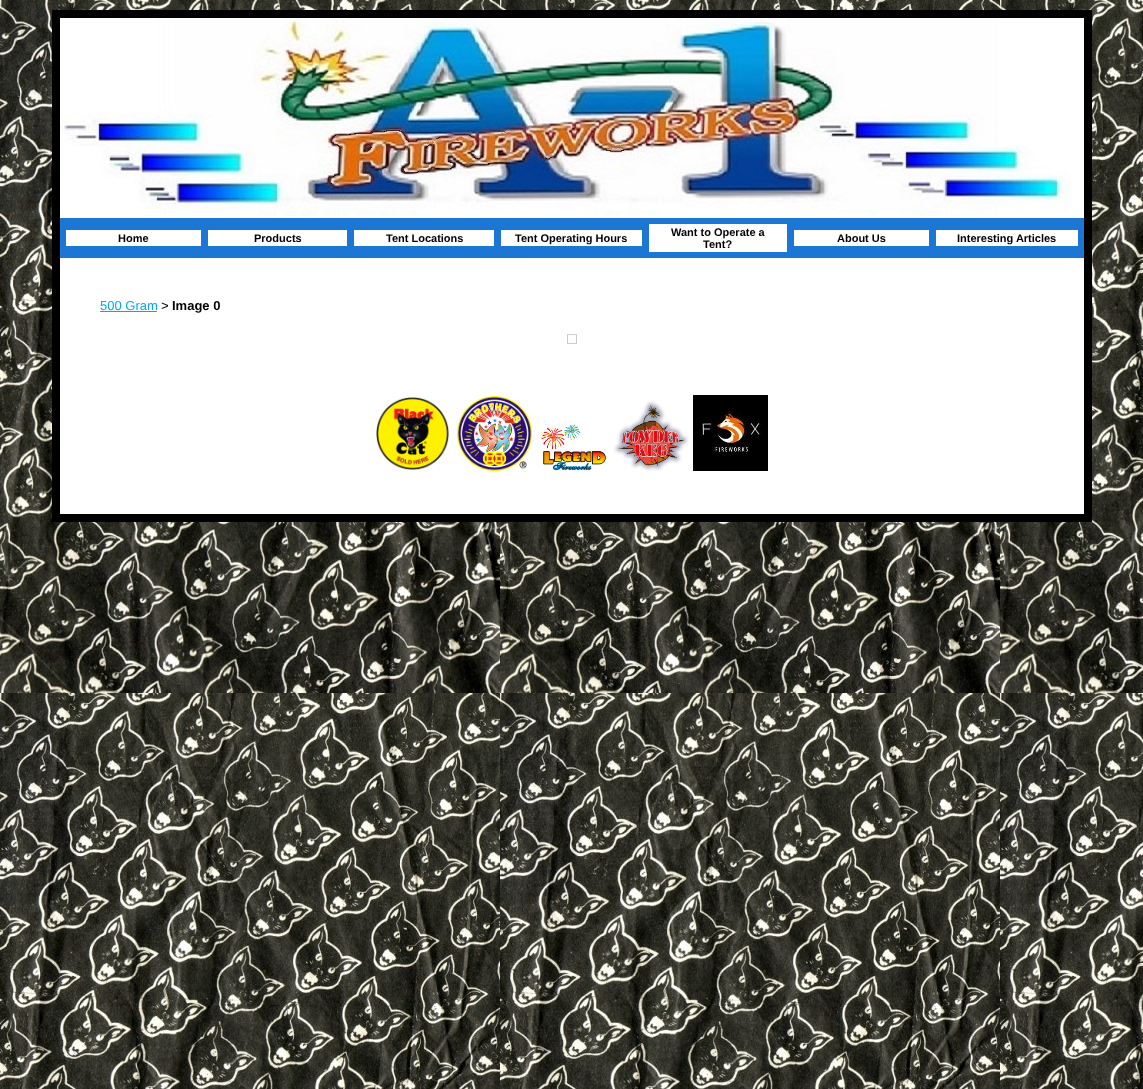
<svg xmlns="http://www.w3.org/2000/svg" width="1143" height="1089" viewBox="0 0 1143 1089">
  <style>
    .t1 { font: bold 11px Liberation Sans; fill: #000; }
    .t2 { font: 13px Liberation Sans; fill: #00a6ff; }
    .t3 { font: 13px Liberation Mono; fill: #000; }
    .t4 { font: bold 13px Liberation Sans; fill: #000; }
  </style>
  <rect width="100%" height="100%" fill="#fff"/>
  <image x="0" y="0" width="1143" height="1089" href="images/1.png"/>
  <rect x="52" y="10" width="1040" height="512" fill="#000"/>
  <rect x="60" y="18" width="1024" height="200" fill="#fff"/>
  <image x="60" y="18" width="1010" height="199" href="images/2.png"/>
  <rect x="60" y="218" width="1024" height="40" fill="#1b77d3"/>
  <rect x="66" y="230" width="135" height="16" fill="#fff"/>
  <text x="118" y="242" class="t1">Home</text>
  <rect x="208" y="230" width="139" height="16" fill="#fff"/>
  <text x="254" y="242" class="t1">Products</text>
  <rect x="354" y="230" width="140" height="16" fill="#fff"/>
  <text x="386" y="242" class="t1">Tent Locations</text>
  <rect x="501" y="230" width="141" height="16" fill="#fff"/>
  <text x="515" y="242" class="t1">Tent Operating Hours</text>
  <rect x="649" y="224" width="138" height="28" fill="#fff"/>
  <text x="671" y="236" class="t1">Want to Operate a</text>
  <text x="703" y="248" class="t1">Tent?</text>
  <rect x="794" y="230" width="135" height="16" fill="#fff"/>
  <text x="837" y="242" class="t1">About Us</text>
  <rect x="936" y="230" width="142" height="16" fill="#fff"/>
  <text x="957" y="242" class="t1">Interesting Articles</text>
  <rect x="60" y="258" width="1024" height="256" fill="#fff"/>
  <text x="100" y="310" class="t2">500 Gram</text>
  <rect x="100" y="311" width="57" height="1" fill="#00a6ff"/>
  <text x="161" y="310" class="t3">&gt;</text>
  <text x="172" y="310" class="t4">Image 0</text>
  <rect x="567.5" y="334.5" width="9" height="9" fill="none" stroke="#ccc"/>
  <image x="376" y="397" width="74" height="74" href="images/3.png"/>
  <image x="457" y="396" width="75" height="75" href="images/4.png"/>
  <image x="541" y="424" width="65" height="47" href="images/5.png"/>
  <image x="614" y="401" width="75" height="70" href="images/6.png"/>
  <image x="693" y="395" width="75" height="76" href="images/7.png"/>
</svg>
